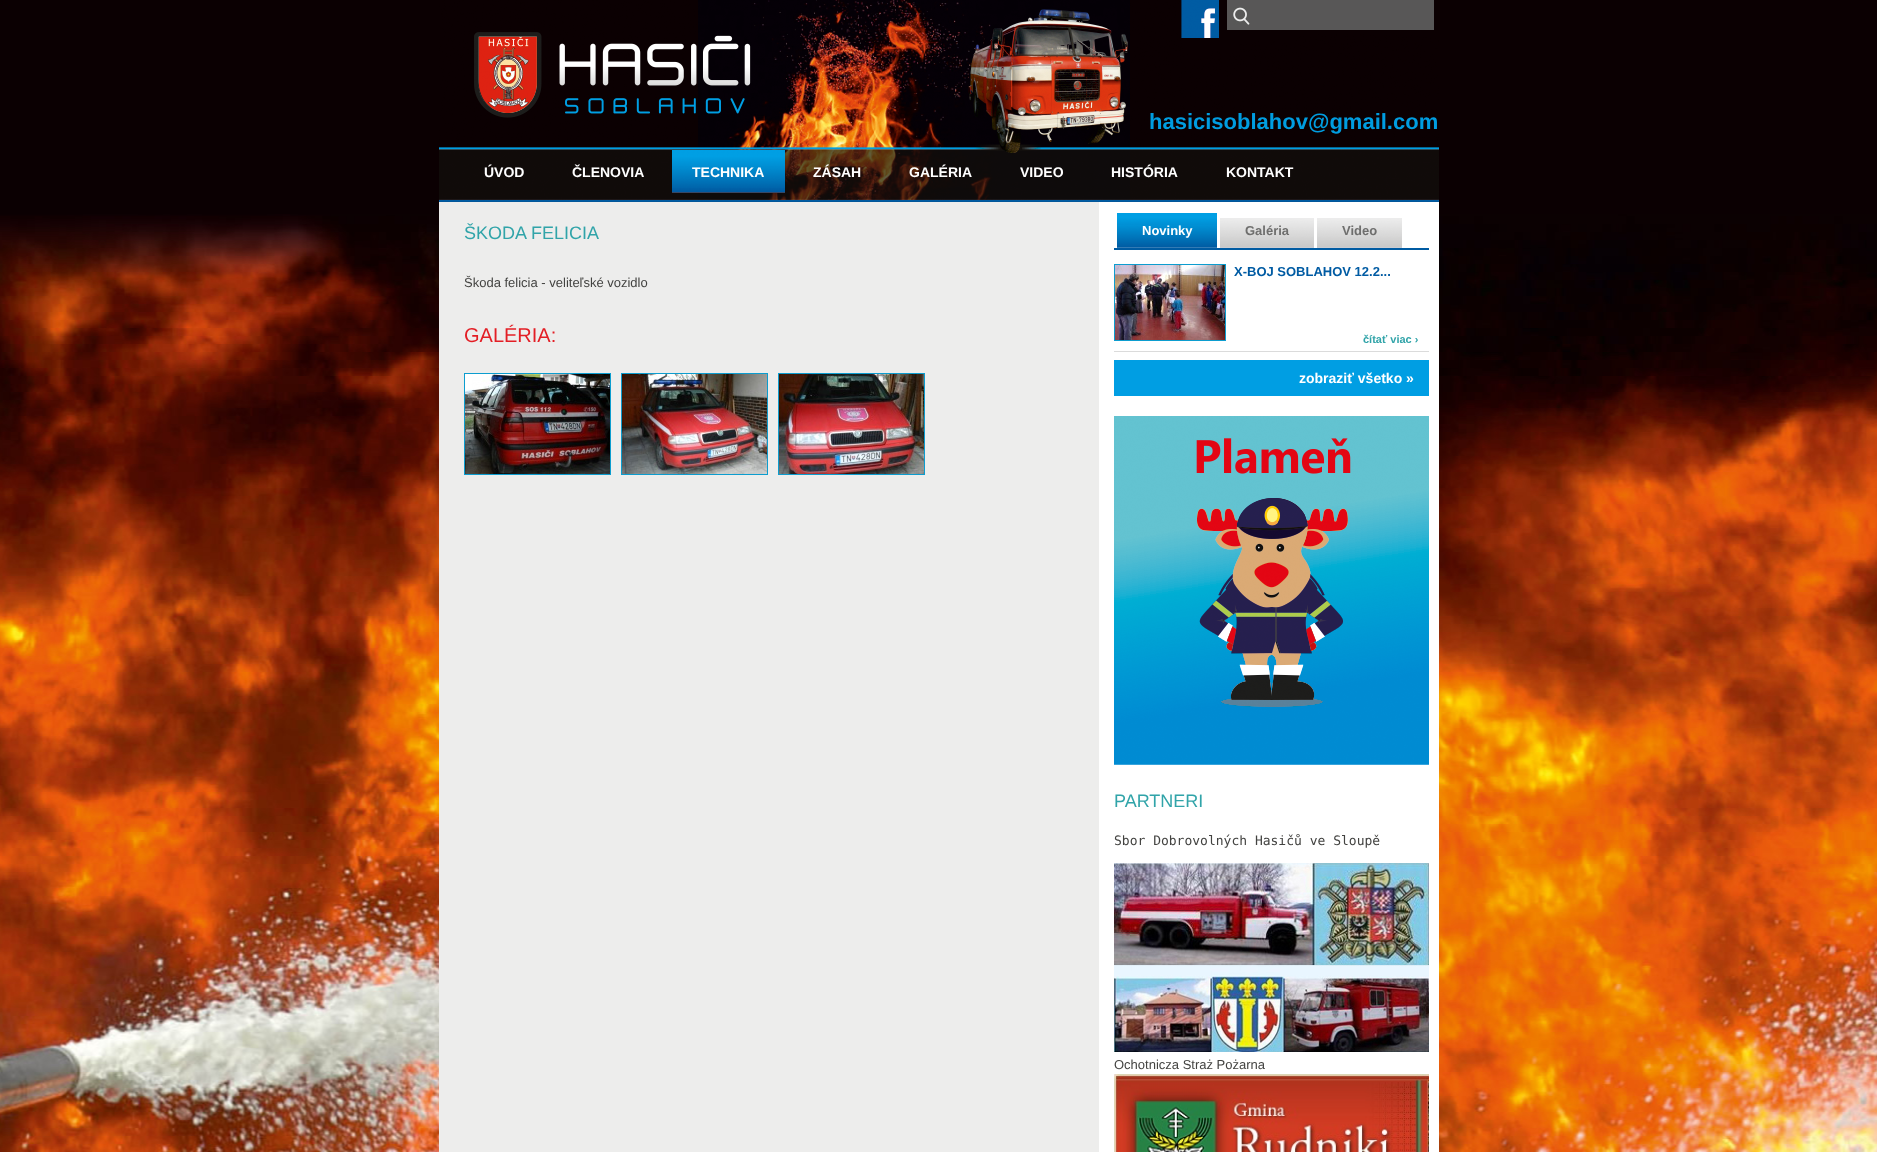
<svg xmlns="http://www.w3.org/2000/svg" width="1877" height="1152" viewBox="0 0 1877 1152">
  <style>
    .t1 { font: bold 22px Liberation Sans; fill: #009de1; }
    .t2 { font: bold 14px Liberation Sans; fill: #fff; }
    .t3 { font: 18px Liberation Sans; fill: #31a4a9; }
    .t4 { font: 13px Liberation Sans; fill: #434341; }
    .t5 { font: 20px Liberation Sans; fill: #e31e25; }
    .t6 { font: bold 13px Liberation Sans; fill: #fff; }
    .t7 { font: bold 13px Liberation Sans; fill: #6f6f6e; }
    .t8 { font: bold 13px Liberation Sans; fill: #005ba3; }
    .t9 { font: bold 11px Liberation Sans; fill: #31a4a9; }
    .t10 { font: 13px DejaVu Sans Mono; fill: #434341; }
  </style>
  <rect width="100%" height="100%" fill="#0b0002"/>
  <image x="0" y="214" width="1877" height="938" href="images/1.png"/>
  <image x="439" y="0" width="1000" height="202" href="images/2.png"/>
  <image x="1181" y="0" width="38" height="38" href="images/3.png"/>
  <rect x="1227" y="0" width="207" height="30" fill="#585757"/>
  <image x="1233" y="7" width="17" height="18" href="images/4.png"/>
  <image x="474" y="32" width="277" height="86" href="images/5.png"/>
  <text x="1149" y="129" class="t1">hasicisoblahov@gmail.com</text>
  <text x="484" y="177" class="t2">ÚVOD</text>
  <text x="572" y="177" class="t2">ČLENOVIA</text>
  <image x="672" y="150" width="113" height="43" href="images/6.png"/>
  <text x="692" y="177" class="t2">TECHNIKA</text>
  <text x="813" y="177" class="t2">ZÁSAH</text>
  <text x="909" y="177" class="t2">GALÉRIA</text>
  <text x="1020" y="177" class="t2">VIDEO</text>
  <text x="1111" y="177" class="t2">HISTÓRIA</text>
  <text x="1226" y="177" class="t2">KONTAKT</text>
  <rect x="1099" y="202" width="340" height="950" fill="#fff"/>
  <rect x="439" y="202" width="660" height="950" fill="#ededec"/>
  <text x="464" y="239" class="t3">ŠKODA FELICIA</text>
  <text x="464" y="287" class="t4">Škoda felicia - veliteľské vozidlo</text>
  <text x="464" y="342" class="t5">GALÉRIA:</text>
  <rect x="464.5" y="373.5" width="146" height="101" fill="none" stroke="#0c9dcf"/>
  <image x="465" y="374" width="145" height="100" href="images/7.png"/>
  <rect x="621.5" y="373.5" width="146" height="101" fill="none" stroke="#0c9dcf"/>
  <image x="622" y="374" width="145" height="100" href="images/8.png"/>
  <rect x="778.5" y="373.5" width="146" height="101" fill="none" stroke="#0c9dcf"/>
  <image x="779" y="374" width="145" height="100" href="images/9.png"/>
  <rect x="1114" y="248" width="315" height="2" fill="#005ba2"/>
  <image x="1117" y="213" width="100" height="35" href="images/10.png"/>
  <text x="1142" y="235" class="t6">Novinky</text>
  <image x="1220" y="218" width="94" height="30" href="images/11.png"/>
  <text x="1245" y="235" class="t7">Galéria</text>
  <image x="1317" y="218" width="85" height="30" href="images/12.png"/>
  <text x="1342" y="235" class="t7">Video</text>
  <rect x="1114" y="351" width="315" height="1" fill="#dbdbdb"/>
  <rect x="1114.5" y="264.5" width="111" height="76" fill="none" stroke="#0c9dcf"/>
  <image x="1115" y="265" width="110" height="75" href="images/13.png"/>
  <text x="1234" y="276" class="t8">X-BOJ SOBLAHOV 12.2...</text>
  <text x="1363" y="343" class="t9">čítať viac ›</text>
  <rect x="1114" y="360" width="315" height="36" fill="#009ee3"/>
  <text x="1299" y="383" class="t2">zobraziť všetko »</text>
  <image x="1114" y="416" width="315" height="349" href="images/14.png"/>
  <text x="1114" y="807" class="t3">PARTNERI</text>
  <text x="1114" y="845" class="t10">Sbor Dobrovolných Hasičů ve Sloupě</text>
  <image x="1114" y="863" width="315" height="189" href="images/15.png"/>
  <text x="1114" y="1069" class="t4">Ochotnicza Straż Pożarna</text>
  <image x="1114" y="1074" width="315" height="78" href="images/16.png"/>
</svg>
